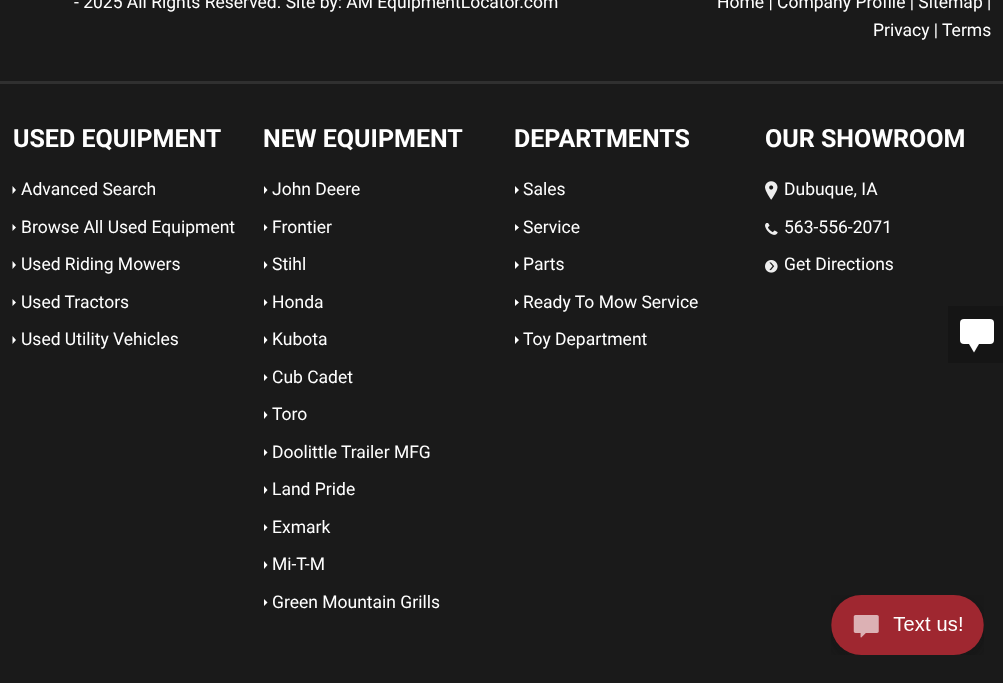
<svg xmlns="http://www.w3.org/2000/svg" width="1003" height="683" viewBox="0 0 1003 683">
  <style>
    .t1 { font: 17.5px Roboto; fill: #fff; }
    .t2 { font: bold 25px Roboto; fill: #fff; }
  </style>
  <rect width="100%" height="100%" fill="#1a1a1a"/>
  <rect x="0" y="81" width="1003" height="3" fill="#303030"/>
  <text x="74" y="8" class="t1">- 2025 All Rights Reserved. Site by: AM EquipmentLocator.com</text>
  <text x="717" y="8" class="t1">Home | Company Profile | Sitemap |</text>
  <text x="873" y="36" class="t1">Privacy |</text>
  <text x="942" y="36" class="t1">Terms</text>
  <text x="13" y="147" class="t2">USED EQUIPMENT</text>
  <path d="M12.5 194V186L16 190Z" fill="#fff"/>
  <text x="21" y="195" class="t1">Advanced Search</text>
  <path d="M12.5 231V224L16 227.5Z" fill="#fff"/>
  <text x="21" y="233" class="t1">Browse All Used Equipment</text>
  <path d="M12.5 269V261L16 265Z" fill="#fff"/>
  <text x="21" y="270" class="t1">Used Riding Mowers</text>
  <path d="M12.5 306V299L16 302.5Z" fill="#fff"/>
  <text x="21" y="308" class="t1">Used Tractors</text>
  <path d="M12.5 344V336L16 340Z" fill="#fff"/>
  <text x="21" y="345" class="t1">Used Utility Vehicles</text>
  <text x="263" y="147" class="t2">NEW EQUIPMENT</text>
  <path d="M264 194V186L267.5 190Z" fill="#fff"/>
  <text x="272" y="195" class="t1">John Deere</text>
  <path d="M264 231V224L267.5 227.5Z" fill="#fff"/>
  <text x="272" y="233" class="t1">Frontier</text>
  <path d="M264 269V261L267.5 265Z" fill="#fff"/>
  <text x="272" y="270" class="t1">Stihl</text>
  <path d="M264 306V299L267.5 302.5Z" fill="#fff"/>
  <text x="272" y="308" class="t1">Honda</text>
  <path d="M264 344V336L267.5 340Z" fill="#fff"/>
  <text x="272" y="345" class="t1">Kubota</text>
  <path d="M264 381V374L267.5 377.5Z" fill="#fff"/>
  <text x="272" y="383" class="t1">Cub Cadet</text>
  <path d="M264 419V411L267.5 415Z" fill="#fff"/>
  <text x="272" y="420" class="t1">Toro</text>
  <path d="M264 456V449L267.5 452.5Z" fill="#fff"/>
  <text x="272" y="458" class="t1">Doolittle Trailer MFG</text>
  <path d="M264 494V486L267.5 490Z" fill="#fff"/>
  <text x="272" y="495" class="t1">Land Pride</text>
  <path d="M264 531V524L267.5 527.5Z" fill="#fff"/>
  <text x="272" y="533" class="t1">Exmark</text>
  <path d="M264 569V561L267.5 565Z" fill="#fff"/>
  <text x="272" y="570" class="t1">Mi-T-M</text>
  <path d="M264 606V599L267.5 602.5Z" fill="#fff"/>
  <text x="272" y="608" class="t1">Green Mountain Grills</text>
  <text x="514" y="147" class="t2">DEPARTMENTS</text>
  <path d="M515 194V186L519 190Z" fill="#fff"/>
  <text x="523" y="195" class="t1">Sales</text>
  <path d="M515 231V224L519 227.5Z" fill="#fff"/>
  <text x="523" y="233" class="t1">Service</text>
  <path d="M515 269V261L519 265Z" fill="#fff"/>
  <text x="523" y="270" class="t1">Parts</text>
  <path d="M515 306V299L519 302.5Z" fill="#fff"/>
  <text x="523" y="308" class="t1">Ready To Mow Service</text>
  <path d="M515 344V336L519 340Z" fill="#fff"/>
  <text x="523" y="345" class="t1">Toy Department</text>
  <text x="765" y="147" class="t2">OUR SHOWROOM</text>
  <image x="765" y="181" width="13" height="19" href="images/1.png"/>
  <text x="784" y="195" class="t1">Dubuque, IA</text>
  <image x="765" y="223" width="13" height="12" href="images/2.png"/>
  <text x="784" y="233" class="t1">563-556-2071</text>
  <image x="765" y="260" width="13" height="13" href="images/3.png"/>
  <text x="784" y="270" class="t1">Get Directions</text>
  <rect x="948" y="306" width="55" height="57" fill="#151515"/>
  <rect x="960" y="319" width="34" height="25" rx="4" fill="#fff"/>
  <path d="M969 344H979L974 352.5Z" fill="#fff"/>
  <image x="831" y="595" width="153" height="60" href="images/4.png"/>
</svg>
